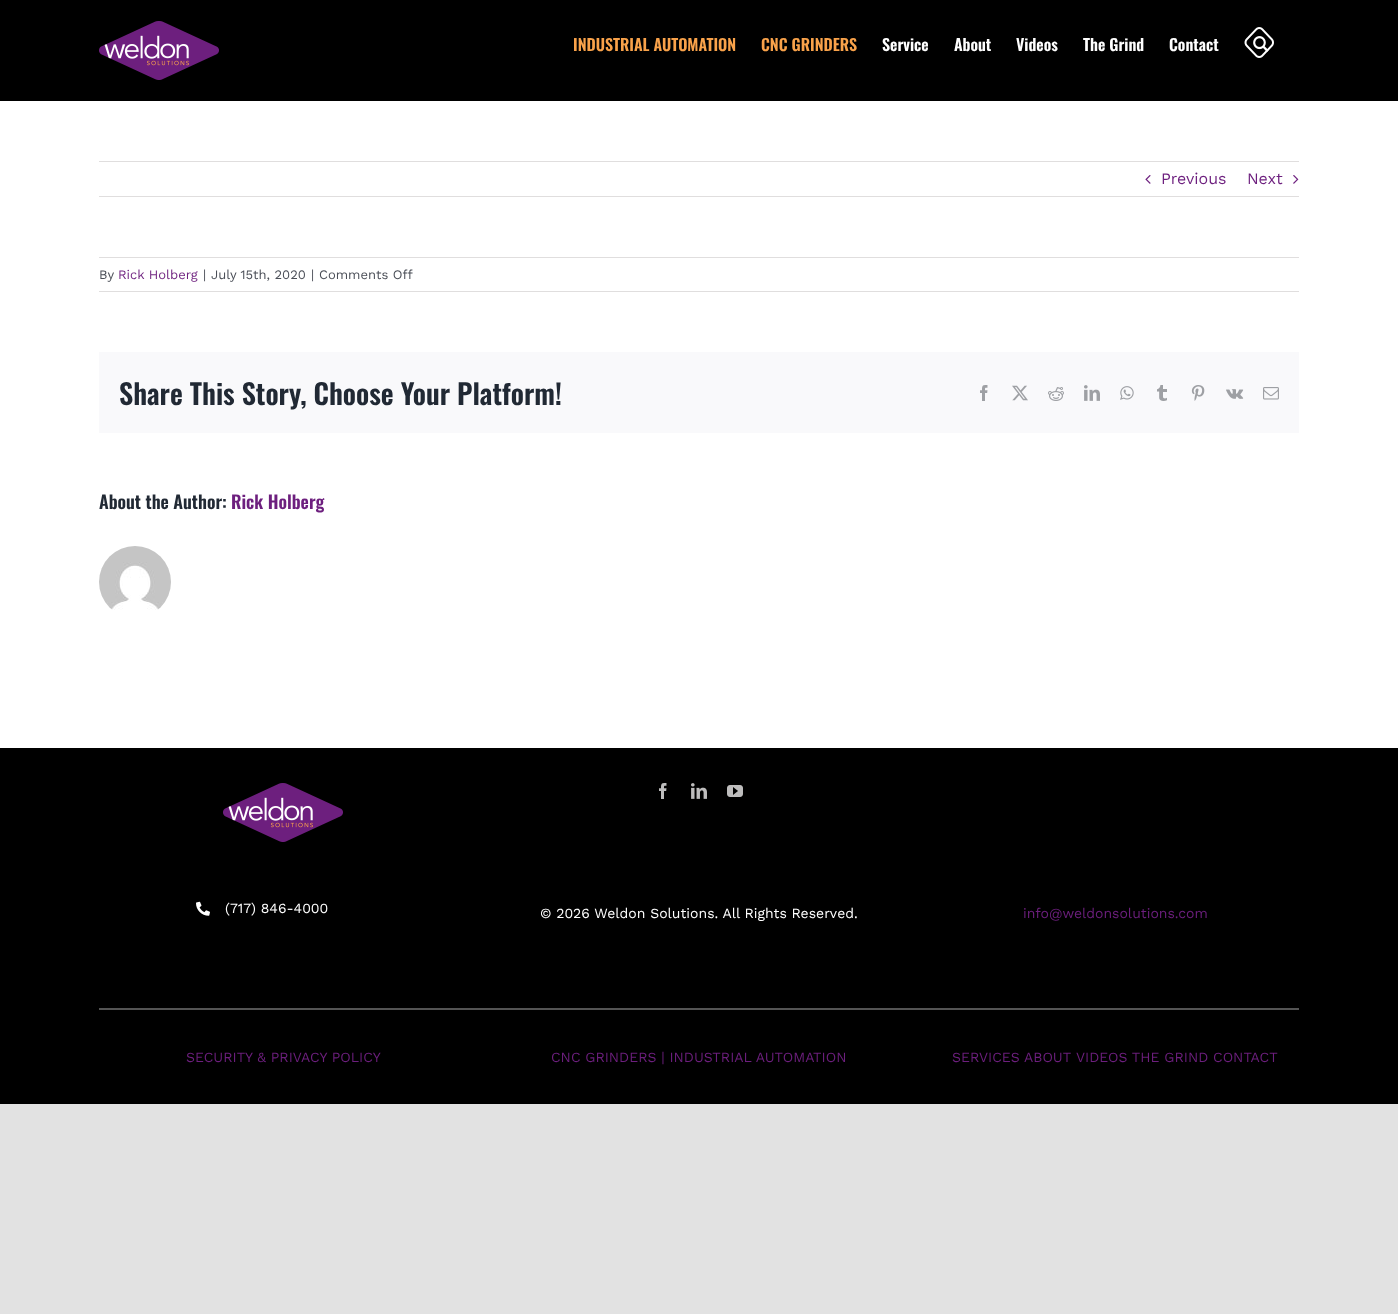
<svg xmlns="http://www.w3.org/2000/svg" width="1398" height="1314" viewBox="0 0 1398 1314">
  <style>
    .t1 { font: 600 16px Oswald; fill: #f9a24a; }
    .t2 { font: 600 16px Oswald; fill: #fff; }
    .t3 { font: 16px Work Sans; fill: #6d1f7e; }
    .t4 { font: 13px Work Sans; fill: #4a4e57; }
    .t5 { font: 13px Work Sans; fill: #6d1f7e; }
    .t6 { font: 600 28px Oswald; fill: #212934; }
    .t7 { font: 600 18px Oswald; fill: #212934; }
    .t8 { font: 600 18px Oswald; fill: #6d1f7e; }
    .t9 { font: 14px Work Sans; fill: #fff; }
    .t10 { font: 14px Work Sans; fill: #6d1f7e; }
  </style>
  <rect width="100%" height="100%" fill="#e2e2e2"/>
  <rect x="0" y="101" width="1398" height="647" fill="#fff"/>
  <rect x="0" y="0" width="1398" height="101" fill="#000"/>
  <image x="99" y="21" width="120" height="59" href="images/1.png"/>
  <text x="573" y="51" class="t1">INDUSTRIAL AUTOMATION</text>
  <text x="761" y="51" class="t1">CNC GRINDERS</text>
  <text x="882" y="51" class="t2">Service</text>
  <text x="954" y="51" class="t2">About</text>
  <text x="1016" y="51" class="t2">Videos</text>
  <text x="1083" y="51" class="t2">The Grind</text>
  <text x="1169" y="51" class="t2">Contact</text>
  <image x="1244" y="27" width="30" height="31" href="images/2.png"/>
  <rect x="99" y="161" width="1200" height="1" fill="#e0dede"/>
  <rect x="99" y="196" width="1200" height="1" fill="#e0dede"/>
  <image x="1145" y="175" width="6" height="9" href="images/3.png"/>
  <text x="1161" y="184" class="t3">Previous</text>
  <text x="1247" y="184" class="t3">Next</text>
  <image x="1293" y="175" width="6" height="9" href="images/4.png"/>
  <rect x="99" y="257" width="1200" height="1" fill="#e0dede"/>
  <rect x="99" y="291" width="1200" height="1" fill="#e0dede"/>
  <text x="99" y="279" class="t4">By</text>
  <text x="118" y="279" class="t5">Rick Holberg</text>
  <text x="203" y="279" class="t4">|</text>
  <text x="211" y="279" class="t4">July 15th, 2020</text>
  <text x="311" y="279" class="t4">|</text>
  <text x="319" y="279" class="t4">Comments Off</text>
  <rect x="99" y="352" width="1200" height="81" fill="#f9f9fb"/>
  <text x="119" y="405" class="t6">Share This Story, Choose Your Platform!</text>
  <image x="980" y="385" width="8" height="16" href="images/5.png"/>
  <image x="1012" y="385" width="16" height="16" href="images/6.png"/>
  <image x="1048" y="387" width="16" height="14" href="images/7.png"/>
  <image x="1084" y="385" width="16" height="16" href="images/8.png"/>
  <image x="1120" y="386" width="14" height="14" href="images/9.png"/>
  <image x="1157" y="385" width="10" height="16" href="images/10.png"/>
  <image x="1191" y="385" width="14" height="16" href="images/11.png"/>
  <image x="1226" y="389" width="18" height="10" href="images/12.png"/>
  <image x="1263" y="387" width="16" height="13" href="images/13.png"/>
  <text x="99" y="509" class="t7">About the Author:</text>
  <text x="231" y="509" class="t8">Rick Holberg</text>
  <image x="99" y="546" width="72" height="64" href="images/14.png"/>
  <rect x="0" y="748" width="1398" height="356" fill="#000"/>
  <image x="223" y="783" width="120" height="59" href="images/1.png"/>
  <image x="659" y="783" width="8" height="16" href="images/15.png"/>
  <image x="691" y="783" width="16" height="16" href="images/16.png"/>
  <image x="727" y="785" width="16" height="12" href="images/17.png"/>
  <image x="196" y="901" width="14" height="15" href="images/18.png"/>
  <text x="225" y="913" class="t9">(717) 846-4000</text>
  <text x="540" y="918" class="t9">© 2026 Weldon Solutions. All Rights Reserved.</text>
  <text x="1023" y="918" class="t10">info@weldonsolutions.com</text>
  <rect x="99" y="1008" width="1200" height="2" fill="#545454"/>
  <text x="186" y="1062" class="t10">SECURITY &amp; PRIVACY POLICY</text>
  <text x="551" y="1062" class="t10">CNC GRINDERS | INDUSTRIAL AUTOMATION</text>
  <text x="952" y="1062" class="t10">SERVICES</text>
  <text x="1024" y="1062" class="t10">ABOUT</text>
  <text x="1076" y="1062" class="t10">VIDEOS THE GRIND CONTACT</text>
</svg>
